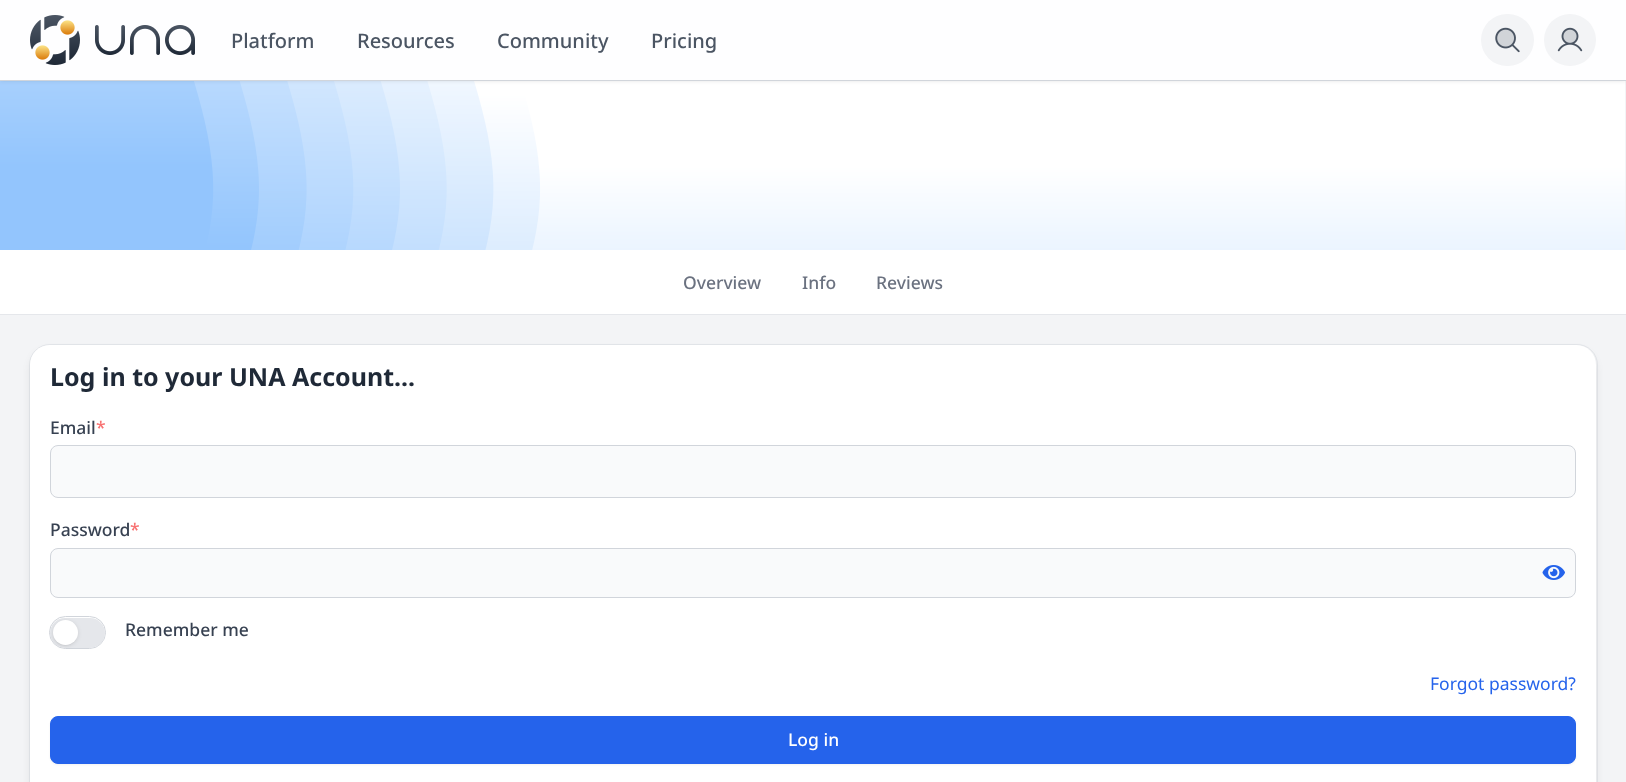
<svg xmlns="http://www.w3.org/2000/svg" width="1626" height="782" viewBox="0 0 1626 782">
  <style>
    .t1 { font: 500 20px Noto Sans; fill: #4b5563; }
    .t2 { font: 500 17.5px Noto Sans; fill: #6b7280; }
    .t3 { font: bold 25px Noto Sans; fill: #1f2937; }
    .t4 { font: 500 17.5px Noto Sans; fill: #374151; }
    .t5 { font: 500 17.5px Noto Sans; fill: #f87171; }
    .t6 { font: 17.5px Noto Sans; fill: #2563eb; }
    .t7 { font: 500 17.5px Noto Sans; fill: #fff; }
  </style>
  <rect width="100%" height="100%" fill="#f3f4f6"/>
  <image x="0" y="81" width="1625" height="169" href="images/4.png"/>
  <rect x="0" y="1" width="1626" height="80" fill="#0000001a" filter="blur(2px)"/>
  <rect x="-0.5" y="-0.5" width="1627" height="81" fill="none" stroke="#d1d5db"/>
  <rect x="0" y="0" width="1626" height="80" fill="#fefeff"/>
  <image x="30" y="15" width="165" height="50" href="images/1.png"/>
  <text x="231" y="48" class="t1">Platform</text>
  <text x="357" y="48" class="t1">Resources</text>
  <text x="497" y="48" class="t1">Community</text>
  <text x="651" y="48" class="t1">Pricing</text>
  <rect x="1481" y="14" width="53" height="52" rx="26" fill="#f3f4f6"/>
  <image x="1495" y="27" width="25" height="26" href="images/2.png"/>
  <circle cx="1570" cy="40" r="26" fill="#f3f4f6"/>
  <image x="1557" y="27" width="26" height="25" href="images/3.png"/>
  <rect x="0" y="250" width="1626" height="64" fill="#fff"/>
  <rect x="0" y="314" width="1626" height="1" fill="#e5e7eb"/>
  <text x="683" y="289" class="t2">Overview</text>
  <text x="802" y="289" class="t2">Info</text>
  <text x="876" y="289" class="t2">Reviews</text>
  <rect x="31" y="351" width="1564" height="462" rx="19" fill="#0000001a" filter="blur(4px)"/>
  <rect x="29.5" y="344.5" width="1568" height="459" rx="20.5" fill="none" stroke="#d1d5db80"/>
  <rect x="30" y="345" width="1566" height="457" rx="20" fill="#fff"/>
  <text x="50" y="386" class="t3">Log in to your UNA Account...</text>
  <text x="50" y="434" class="t4">Email</text>
  <text x="96" y="434" class="t5">*</text>
  <rect x="50.5" y="445.5" width="1525" height="52" rx="7.5" fill="#f9fafb" stroke="#d1d5db"/>
  <text x="50" y="536" class="t4">Password</text>
  <text x="130" y="536" class="t5">*</text>
  <rect x="50.5" y="548.5" width="1525" height="49" rx="7.5" fill="#f9fafb" stroke="#d1d5db"/>
  <image x="1542" y="565" width="23" height="15" href="images/5.png"/>
  <rect x="49.5" y="616.5" width="56" height="32" rx="16" fill="none" stroke="#d1d5db"/>
  <rect x="50" y="618" width="55" height="30" rx="15" fill="#e5e7eb"/>
  <rect x="54" y="623" width="22" height="22" rx="11" fill="#0000001a" filter="blur(1px)"/>
  <rect x="53" y="621" width="25" height="25" rx="12.5" fill="#0000001a" filter="blur(2px)"/>
  <circle cx="65.5" cy="632.5" r="12.5" fill="#fff"/>
  <text x="125" y="636" class="t4">Remember me</text>
  <text x="1430" y="690" class="t6">Forgot password?</text>
  <rect x="50" y="718" width="1526" height="47" rx="8" fill="#0000000d" filter="blur(1px)"/>
  <rect x="50.5" y="716.5" width="1525" height="47" rx="7.5" fill="#2563eb" stroke="#2563eb"/>
  <text x="788" y="746" class="t7">Log in</text>
</svg>
